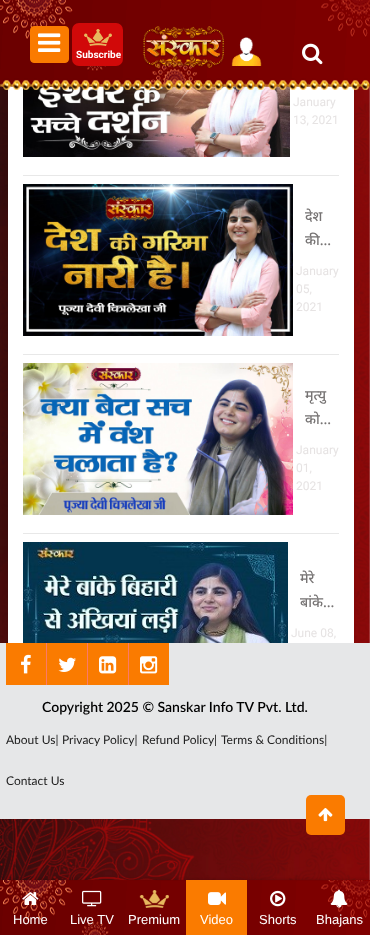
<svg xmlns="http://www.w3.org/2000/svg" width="370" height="935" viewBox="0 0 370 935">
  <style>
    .t1 { font: bold 10px Roboto; fill: #fff; }
    .t2 { font: 12px Roboto; fill: #e6e3e3; }
    .t3 { font: 500 14px Noto Sans; fill: #767373; }
    .t4 { font: 600 14px Lato; fill: #000; }
    .t5 { font: 12px Lato; fill: #212121; }
    .t6 { font: 13px Liberation Sans; fill: #fff; }
  </style>
  <defs>
    <clipPath id="clip1"><rect x="305" y="204" width="34" height="48"/></clipPath>
    <clipPath id="clip2"><rect x="305" y="383" width="34" height="48"/></clipPath>
    <clipPath id="clip3"><rect x="300" y="566" width="39" height="48"/></clipPath>
  </defs>
  <rect width="100%" height="100%" fill="#fff"/>
  <image x="0" y="81" width="370" height="800" href="images/1.png"/>
  <rect x="6" y="-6" width="346" height="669" fill="#00000014" filter="blur(2px)"/>
  <rect x="8" y="84" width="346" height="559" fill="#fff"/>
  <image x="23" y="82" width="267" height="75" href="images/8.png"/>
  <image x="0" y="0" width="370" height="90" href="images/2.png"/>
  <rect x="30.5" y="26.5" width="38" height="36" rx="3.5" fill="#fa7b00" stroke="#fa7b00"/>
  <image x="38" y="33" width="23" height="19" href="images/3.png"/>
  <rect x="72" y="23" width="51" height="43" rx="7" fill="#d10909"/>
  <image x="84" y="29" width="28" height="17" href="images/4.png"/>
  <text x="76" y="58" class="t1">Subscribe</text>
  <image x="143" y="26" width="81" height="42" href="images/5.png"/>
  <image x="231" y="37" width="31" height="29" href="images/6.png"/>
  <image x="302" y="43" width="21" height="22" href="images/7.png"/>
  <rect x="23" y="175" width="316" height="1" fill="#e8e8e8"/>
  <text x="293" y="106" class="t2">January</text>
  <text x="293" y="124" class="t2">13, 2021</text>
  <rect x="23" y="354" width="316" height="1" fill="#e8e8e8"/>
  <image x="23" y="184" width="270" height="152" href="images/9.png"/>
  <g clip-path="url(#clip1)">
    <text x="305" y="221" class="t3">देश</text>
    <text x="305" y="245" class="t3">की…</text>
  </g>
  <text x="296" y="275" class="t2">January</text>
  <text x="296" y="293" class="t2">05,</text>
  <text x="296" y="311" class="t2">2021</text>
  <rect x="23" y="533" width="316" height="1" fill="#e8e8e8"/>
  <image x="23" y="363" width="270" height="152" href="images/10.png"/>
  <g clip-path="url(#clip2)">
    <text x="305" y="400" class="t3">मृत्यु</text>
    <text x="305" y="424" class="t3">को…</text>
  </g>
  <text x="296" y="454" class="t2">January</text>
  <text x="296" y="472" class="t2">01,</text>
  <text x="296" y="490" class="t2">2021</text>
  <image x="23" y="542" width="265" height="101" href="images/11.png"/>
  <g clip-path="url(#clip3)">
    <text x="300" y="583" class="t3">मेरे</text>
    <text x="300" y="607" class="t3">बांके…</text>
  </g>
  <text x="291" y="637" class="t2">June 08,</text>
  <rect x="0" y="643" width="370" height="176" fill="#e6e7e8"/>
  <rect x="6" y="643" width="40" height="42" fill="#fa7b00"/>
  <image x="21" y="654" width="10" height="20" href="images/12.png"/>
  <rect x="46" y="643" width="1" height="42" fill="#fb7968"/>
  <rect x="47" y="643" width="40" height="42" fill="#fa7b00"/>
  <image x="58" y="657" width="18" height="15" href="images/13.png"/>
  <rect x="87" y="643" width="1" height="42" fill="#fb7968"/>
  <rect x="88" y="643" width="40" height="42" fill="#fa7b00"/>
  <image x="99" y="656" width="18" height="18" href="images/14.png"/>
  <rect x="128" y="643" width="1" height="42" fill="#fb7968"/>
  <rect x="129" y="643" width="40" height="42" fill="#fa7b00"/>
  <image x="140" y="656" width="18" height="18" href="images/15.png"/>
  <text x="42" y="712" class="t4">Copyright 2025 © Sanskar Info TV Pvt. Ltd.</text>
  <text x="6" y="744" class="t5">About Us|</text>
  <text x="62" y="744" class="t5">Privacy Policy|</text>
  <text x="142" y="744" class="t5">Refund Policy|</text>
  <text x="221" y="744" class="t5">Terms &amp; Conditions|</text>
  <text x="6" y="785" class="t5">Contact Us</text>
  <rect x="306" y="795" width="39" height="40" rx="5" fill="#fa7b00"/>
  <image x="318" y="808" width="15" height="14" href="images/16.png"/>
  <rect x="0" y="880" width="370" height="55" fill="#00000033" filter="blur(1.5px)"/>
  <image x="0" y="880" width="370" height="55" href="images/17.png"/>
  <image x="22" y="892" width="17" height="13" href="images/18.png"/>
  <text x="13" y="924" class="t6">Home</text>
  <image x="82" y="890" width="20" height="17" href="images/19.png"/>
  <text x="70" y="924" class="t6">Live TV</text>
  <image x="139" y="890" width="30" height="18" href="images/20.png"/>
  <text x="128" y="924" class="t6">Premium</text>
  <rect x="186" y="880" width="61" height="55" fill="#fa7b00"/>
  <image x="208" y="892" width="18" height="13" href="images/21.png"/>
  <text x="200" y="924" class="t6">Video</text>
  <image x="270" y="890" width="16" height="17" href="images/22.png"/>
  <text x="259" y="924" class="t6">Shorts</text>
  <image x="330" y="889" width="18" height="19" href="images/23.png"/>
  <text x="316" y="924" class="t6">Bhajans</text>
</svg>
